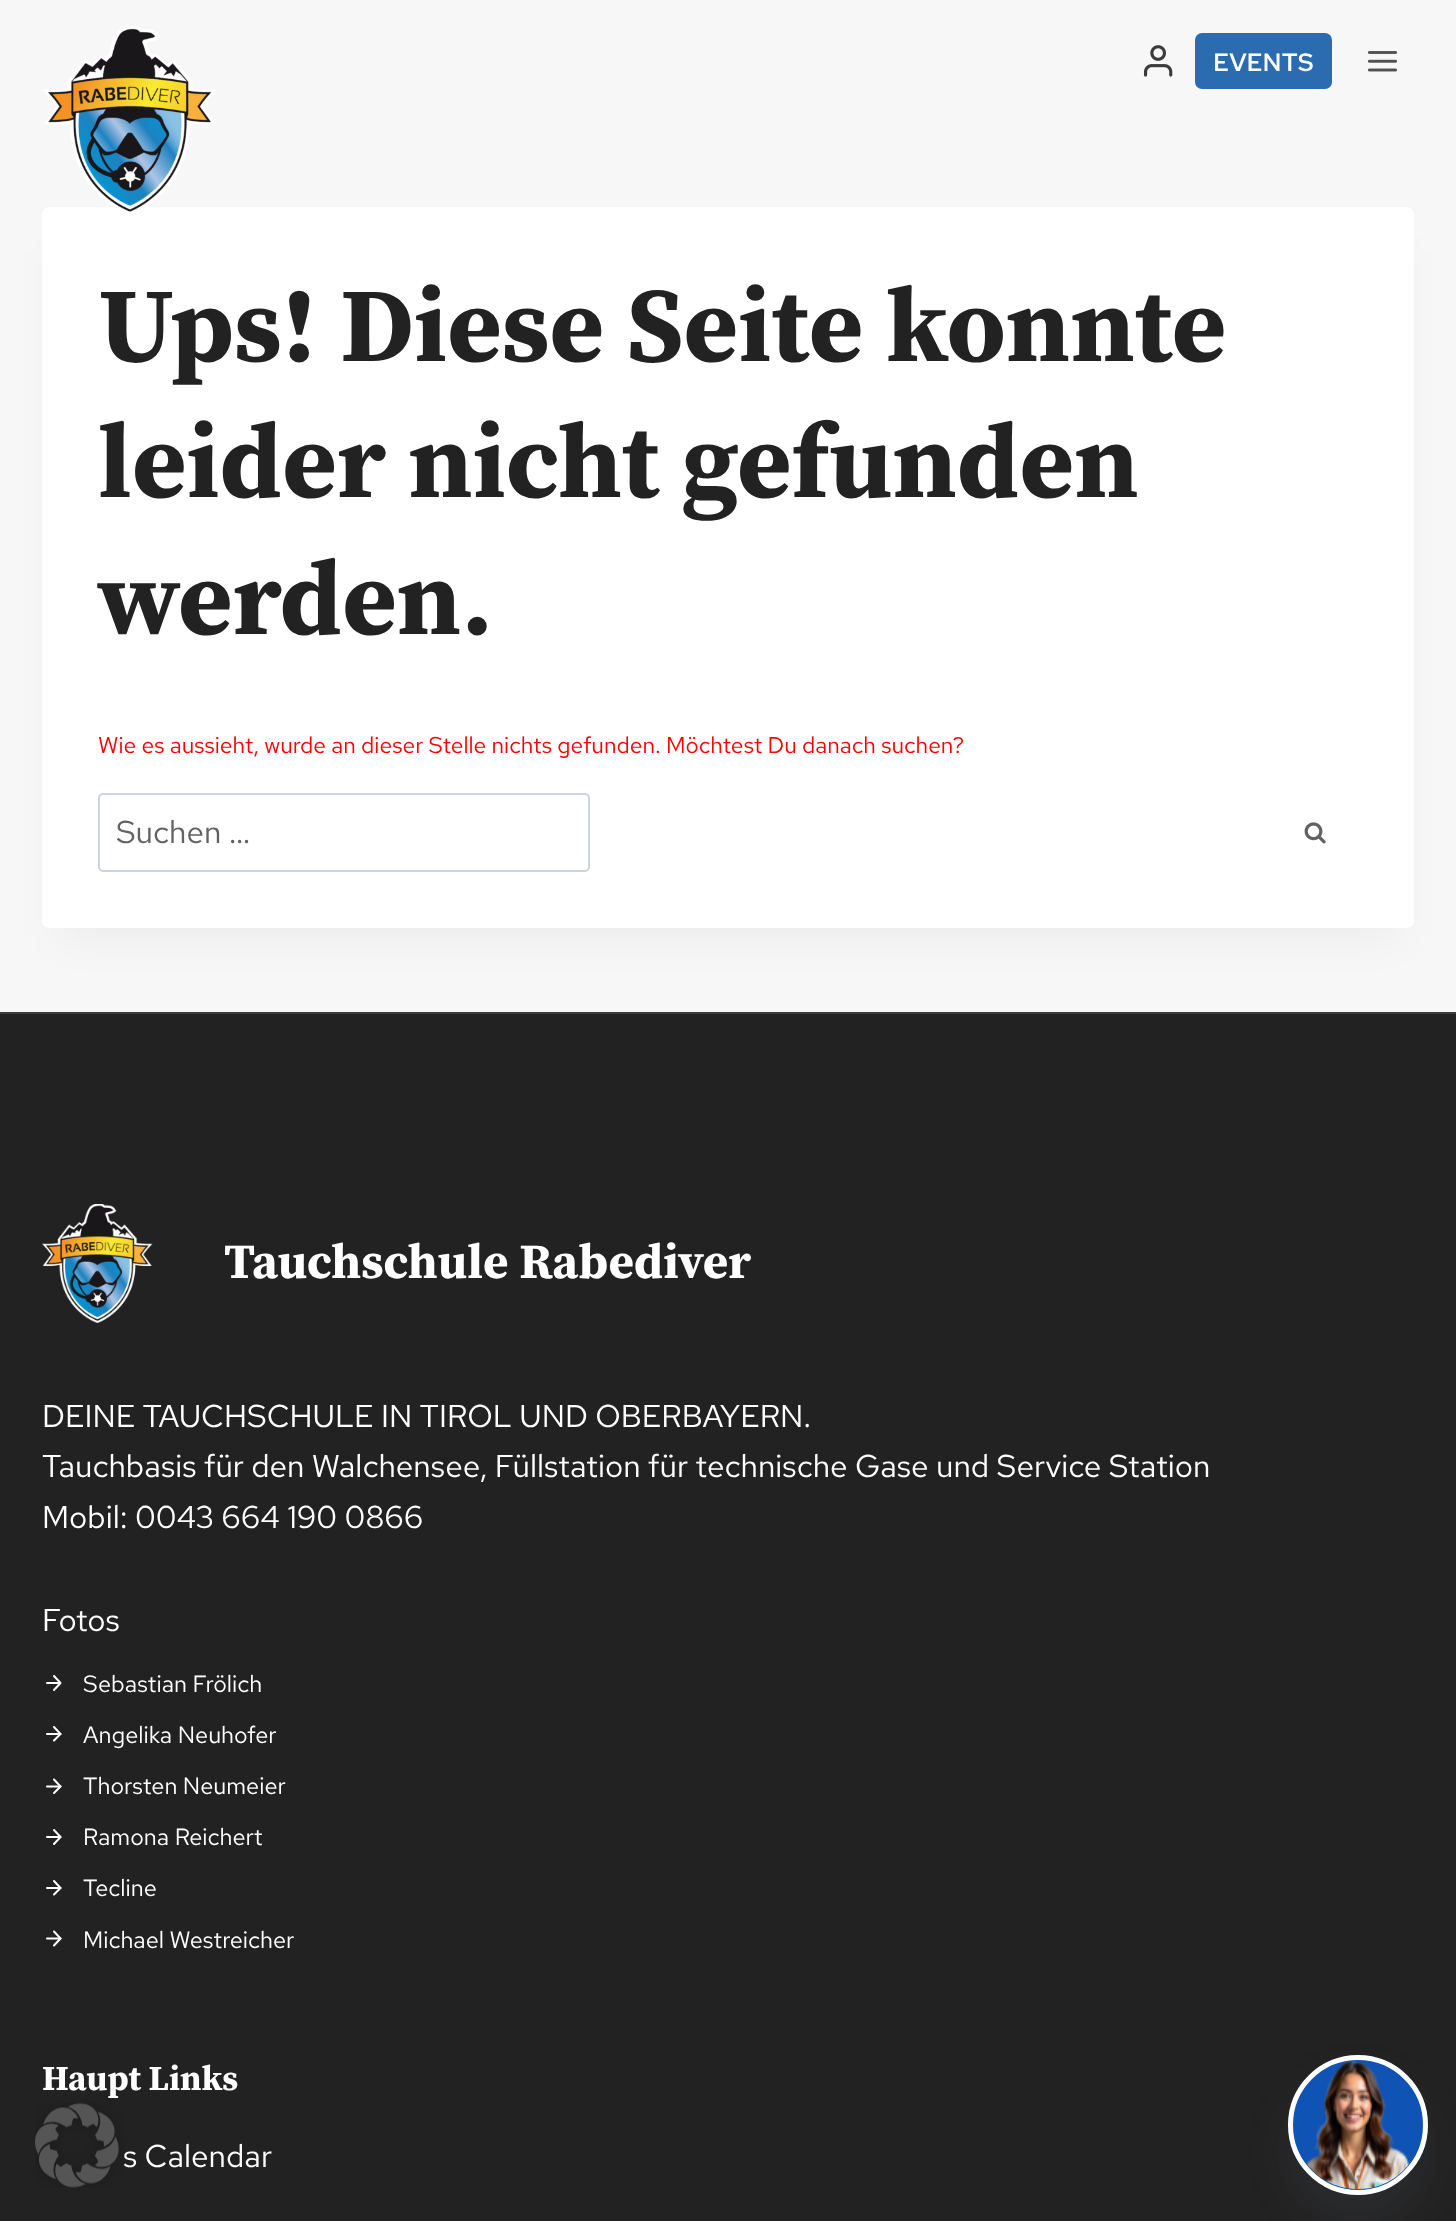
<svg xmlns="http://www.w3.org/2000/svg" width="1456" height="2221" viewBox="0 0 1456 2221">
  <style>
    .t1 { font: 500 25px Red Hat Text; fill: #fff; }
    .t2 { font: bold 105px Source Serif Pro; fill: #222; }
    .t3 { font: 22.75px Red Hat Text; fill: #f00; }
    .t4 { font: 31.5px Red Hat Text; fill: #626262; }
    .t5 { font: bold 49px Source Serif Pro; fill: #fff; }
    .t6 { font: 31.5px Red Hat Text; fill: #fff; }
    .t7 { font: 23.5px Red Hat Text; fill: #fff; }
    .t8 { font: bold 35px Source Serif Pro; fill: #fff; }
  </style>
  <rect width="100%" height="100%" fill="#f7f7f7"/>
  <rect x="60" y="250" width="1337" height="686" fill="#0000000d" filter="blur(22px)"/>
  <rect x="42" y="207" width="1372" height="721" rx="7" fill="#fff"/>
  <image x="43" y="26" width="174" height="186" href="images/1.png"/>
  <image x="1143" y="45" width="30" height="32" href="images/2.png"/>
  <rect x="1195" y="33" width="137" height="56" rx="7" fill="#2b6cb0"/>
  <text x="1213" y="71" class="t1">EVENTS</text>
  <image x="1367" y="51" width="31" height="21" href="images/3.png"/>
  <text x="98" y="361" class="t2">Ups! Diese Seite konnte</text>
  <text x="98" y="497" class="t2">leider nicht gefunden</text>
  <text x="98" y="634" class="t2">werden.</text>
  <text x="98" y="753" class="t3">Wie es aussieht, wurde an dieser Stelle nichts gefunden. Möchtest Du danach suchen?</text>
  <rect x="99" y="794" width="490" height="77" rx="4" fill="none" stroke="#cbd5e0" stroke-width="2"/>
  <text x="116" y="843" class="t4">Suchen …</text>
  <image x="1304" y="822" width="22" height="22" href="images/4.png"/>
  <rect x="0" y="1014" width="1456" height="1207" fill="#222"/>
  <rect x="0" y="1012" width="1456" height="2" fill="#3b3b3b"/>
  <image x="42" y="1204" width="111" height="119" href="images/5.png"/>
  <text x="224" y="1278" class="t5">Tauchschule Rabediver</text>
  <text x="42" y="1427" class="t6">DEINE TAUCHSCHULE IN TIROL UND OBERBAYERN.</text>
  <text x="42" y="1477" class="t6">Tauchbasis für den Walchensee, Füllstation für technische Gase und Service Station</text>
  <text x="42" y="1528" class="t6">Mobil: 0043 664 190 0866</text>
  <text x="42" y="1631" class="t6">Fotos</text>
  <path d="M47 1683H60.5M54 1676L60.5 1683L54 1690M47 1734H60.5" fill="none" stroke="#fff" stroke-width="2" stroke-linecap="round" stroke-linejoin="round"/>
  <text x="83" y="1692" class="t7">Sebastian Frölich</text>
  <path d="M54 1727L60.5 1734L54 1740.5M47 1786.5H60.5" fill="none" stroke="#fff" stroke-width="2" stroke-linecap="round" stroke-linejoin="round"/>
  <text x="83" y="1743" class="t7">Angelika Neuhofer</text>
  <path d="M54 1779.5L60.5 1786.5L54 1793M47 1837H60.5" fill="none" stroke="#fff" stroke-width="2" stroke-linecap="round" stroke-linejoin="round"/>
  <text x="83" y="1794" class="t7">Thorsten Neumeier</text>
  <path d="M54 1830L60.5 1837L54 1844M47 1888H60.5" fill="none" stroke="#fff" stroke-width="2" stroke-linecap="round" stroke-linejoin="round"/>
  <text x="83" y="1845" class="t7">Ramona Reichert</text>
  <path d="M54 1881L60.5 1888L54 1894.5M47 1938.5H60.5" fill="none" stroke="#fff" stroke-width="2" stroke-linecap="round" stroke-linejoin="round"/>
  <text x="83" y="1896" class="t7">Tecline</text>
  <path d="M54 1931.5L60.5 1938.5L54 1945.5" fill="none" stroke="#fff" stroke-width="2" stroke-linecap="round" stroke-linejoin="round"/>
  <text x="83" y="1948" class="t7">Michael Westreicher</text>
  <text x="42" y="2090" class="t8">Haupt Links</text>
  <text x="123" y="2167" class="t6">s Calendar</text>
  <rect x="1288" y="2083" width="140" height="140" rx="70" fill="#545f6f29" filter="blur(21px)"/>
  <circle cx="1358" cy="2125" r="67.5" fill="#0f53b4" stroke="#fff" stroke-width="5"/>
  <image x="1306" y="2060" width="104" height="130" href="images/6.png"/>
  <image x="35" y="2103" width="91" height="85" href="images/7.png"/>
</svg>
